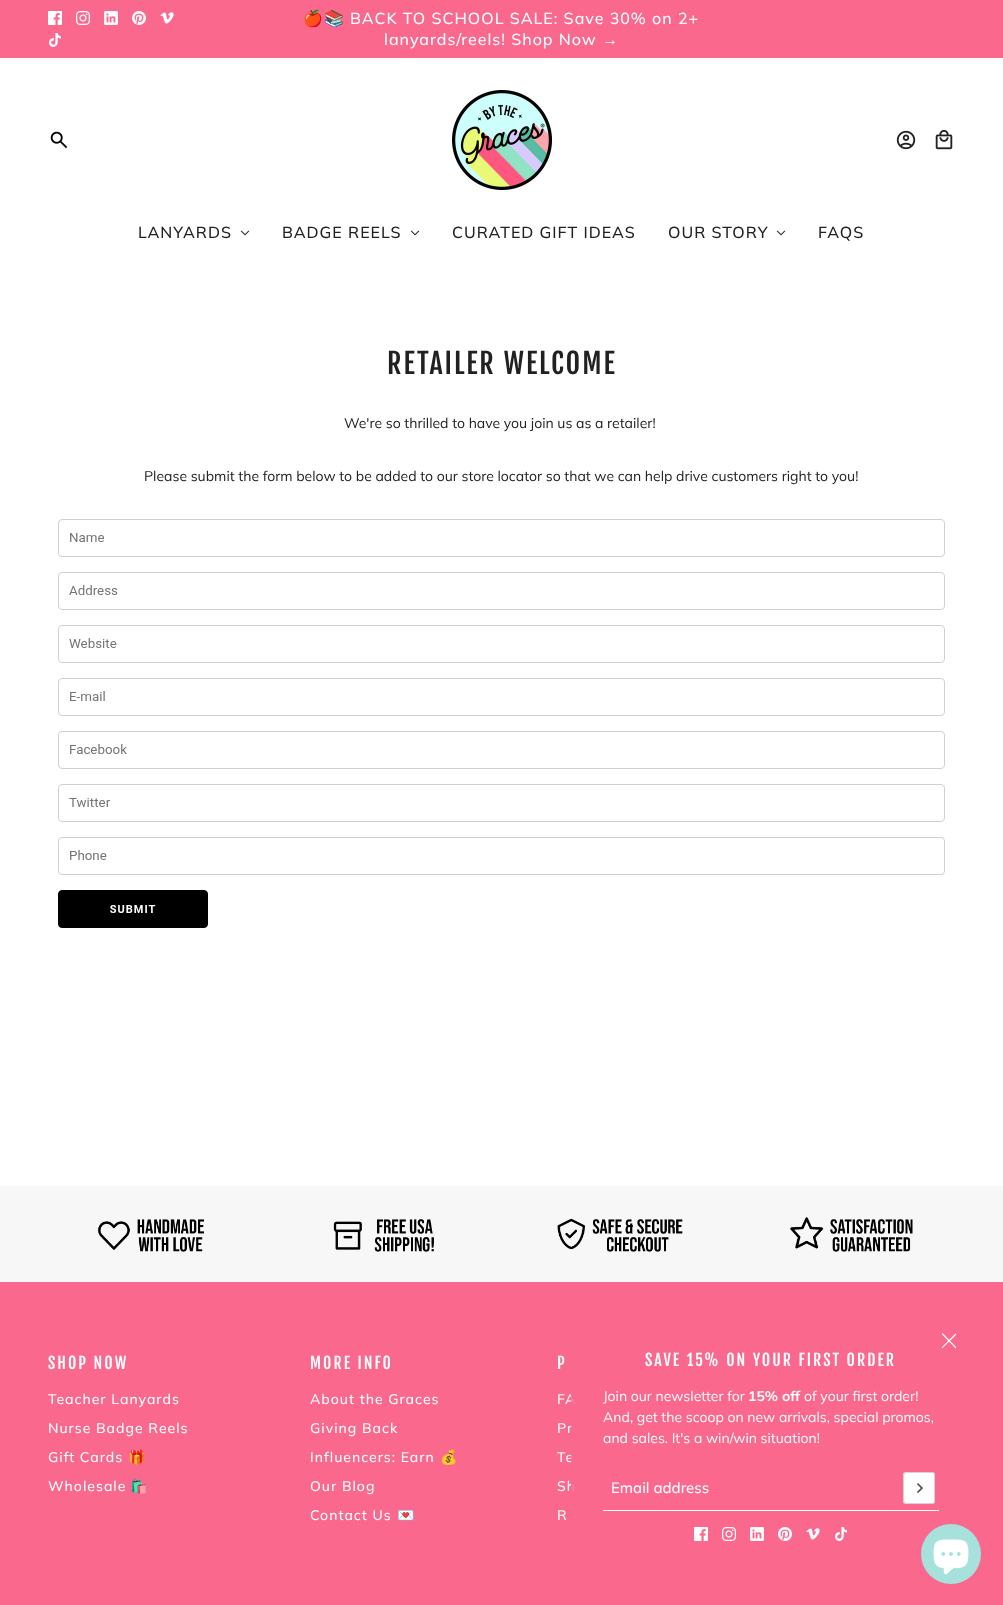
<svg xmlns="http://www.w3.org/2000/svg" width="1003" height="1605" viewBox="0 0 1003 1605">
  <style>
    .t1 { font: 16px Noto Color Emoji; letter-spacing: 1px; fill: #fff; }
    .t2 { font: 500 16px Muli; letter-spacing: 1px; fill: #fff; }
    .t3 { font: 16px Liberation Sans; letter-spacing: 1px; fill: #fff; }
    .t4 { font: 500 16px Muli; letter-spacing: 1px; fill: #212121; }
    .t5 { font: 28px Fjalla One; letter-spacing: 2px; fill: #212121; }
    .t6 { font: 14px Muli; fill: #212121; }
    .t7 { font: 16px Fjalla One; letter-spacing: 2px; fill: #fff; }
    .t8 { font: 500 14px Muli; letter-spacing: 1px; fill: #fff; }
    .t9 { font: 14px Noto Color Emoji; letter-spacing: 1px; fill: #fff; }
    .t10 { font: 14px Muli; fill: #fff; }
    .t11 { font: bold 14px Muli; fill: #fff; }
    .t12 { font: 500 15px Muli; fill: #fff; }
  </style>
  <rect width="100%" height="100%" fill="#fff"/>
  <rect x="0" y="0" width="1003" height="58" fill="#fa688e"/>
  <image x="48" y="11" width="14" height="14" href="images/1.png"/>
  <image x="76" y="11" width="14" height="14" href="images/2.png"/>
  <image x="104" y="11" width="14" height="14" href="images/3.png"/>
  <image x="132" y="11" width="14" height="14" href="images/4.png"/>
  <image x="160" y="12" width="14" height="12" href="images/5.png"/>
  <image x="49" y="33" width="12" height="14" href="images/6.png"/>
  <text x="303" y="24" class="t1">🍎📚</text>
  <text x="350" y="24" class="t2">BACK TO SCHOOL SALE: Save 30% on 2+</text>
  <text x="384" y="45" class="t2">lanyards/reels! Shop Now</text>
  <text x="602" y="45" class="t3">→</text>
  <image x="50" y="131" width="18" height="18" href="images/7.png"/>
  <image x="452" y="90" width="100" height="100" href="images/8.png"/>
  <image x="896" y="130" width="20" height="20" href="images/9.png"/>
  <image x="935" y="129" width="18" height="21" href="images/10.png"/>
  <text x="138" y="238" class="t4">LANYARDS</text>
  <image x="240" y="230" width="10" height="6" href="images/11.png"/>
  <text x="282" y="238" class="t4">BADGE REELS</text>
  <image x="410" y="230" width="10" height="6" href="images/11.png"/>
  <text x="452" y="238" class="t4">CURATED GIFT IDEAS</text>
  <text x="668" y="238" class="t4">OUR STORY</text>
  <image x="776" y="230" width="10" height="6" href="images/11.png"/>
  <text x="818" y="238" class="t4">FAQS</text>
  <text x="387" y="374" class="t5">RETAILER WELCOME</text>
  <text x="344" y="428" class="t6">We're so thrilled to have you join us as a retailer!</text>
  <text x="144" y="481" class="t6">Please submit the form below to be added to our store locator so that we can help drive customers right to you!</text>
  <image x="58" y="519" width="887" height="409" href="images/12.png"/>
  <rect x="0" y="1186" width="1003" height="96" fill="#f7f7f7"/>
  <image x="98" y="1219" width="106" height="33" href="images/13.png"/>
  <image x="333" y="1219" width="101" height="33" href="images/14.png"/>
  <image x="557" y="1218" width="126" height="34" href="images/15.png"/>
  <image x="790" y="1217" width="123" height="35" href="images/16.png"/>
  <rect x="0" y="1282" width="1003" height="323" fill="#fa688e"/>
  <text x="48" y="1369" class="t7">SHOP NOW</text>
  <text x="48" y="1404" class="t8">Teacher Lanyards</text>
  <text x="48" y="1433" class="t8">Nurse Badge Reels</text>
  <text x="48" y="1462" class="t8">Gift Cards</text>
  <text x="128" y="1462" class="t9">🎁</text>
  <text x="48" y="1491" class="t8">Wholesale</text>
  <text x="130" y="1491" class="t9">🛍️</text>
  <text x="310" y="1369" class="t7">MORE INFO</text>
  <text x="310" y="1404" class="t8">About the Graces</text>
  <text x="310" y="1433" class="t8">Giving Back</text>
  <text x="310" y="1462" class="t8">Influencers: Earn</text>
  <text x="440" y="1462" class="t9">💰</text>
  <text x="310" y="1491" class="t8">Our Blog</text>
  <text x="310" y="1520" class="t8">Contact Us</text>
  <text x="397" y="1520" class="t9">💌</text>
  <text x="557" y="1369" class="t7">P</text>
  <text x="557" y="1404" class="t8">FA</text>
  <text x="557" y="1433" class="t8">Pr</text>
  <text x="557" y="1462" class="t8">Te</text>
  <text x="557" y="1491" class="t8">Sh</text>
  <text x="557" y="1520" class="t8">R</text>
  <rect x="571" y="1319" width="400" height="254" rx="4" fill="#fa688ed9"/>
  <path d="M943 1333.5L956 1347V1348C955.5 1349 954 1347 953 1345.5L942 1334.5C941.5 1334 942.5 1333 943 1333.5Z" fill="#fff"/>
  <path d="M942 1347L955.5 1333.5H956C957 1334.5 955 1335.5 954 1337L942.5 1348C942 1348.5 941.5 1347.5 942 1347Z" fill="#fff"/>
  <text x="645" y="1366" class="t7">SAVE 15% ON YOUR FIRST ORDER</text>
  <text x="603" y="1401" class="t10">Join our newsletter for</text>
  <text x="748" y="1401" class="t11">15% off</text>
  <text x="804" y="1401" class="t10">of your first order!</text>
  <text x="603" y="1422" class="t10">And, get the scoop on new arrivals, special promos,</text>
  <text x="603" y="1443" class="t10">and sales. It's a win/win situation!</text>
  <rect x="603" y="1510" width="336" height="1" fill="#fff"/>
  <text x="611" y="1493" class="t12">Email address</text>
  <rect x="903" y="1472" width="32" height="32" rx="3" fill="#fff"/>
  <rect x="903.5" y="1472.5" width="31" height="31" rx="2.5" fill="none" stroke="#21212133"/>
  <image x="917" y="1483" width="6" height="10" href="images/17.png"/>
  <image x="694" y="1527" width="14" height="14" href="images/1.png"/>
  <image x="722" y="1527" width="14" height="14" href="images/2.png"/>
  <image x="750" y="1527" width="14" height="14" href="images/3.png"/>
  <image x="778" y="1527" width="14" height="14" href="images/18.png"/>
  <image x="806" y="1528" width="14" height="12" href="images/5.png"/>
  <image x="835" y="1527" width="12" height="14" href="images/6.png"/>
  <circle cx="951" cy="1554" r="30" fill="#a6e1dc"/>
  <image x="933" y="1539" width="36" height="36" href="images/19.png"/>
</svg>
